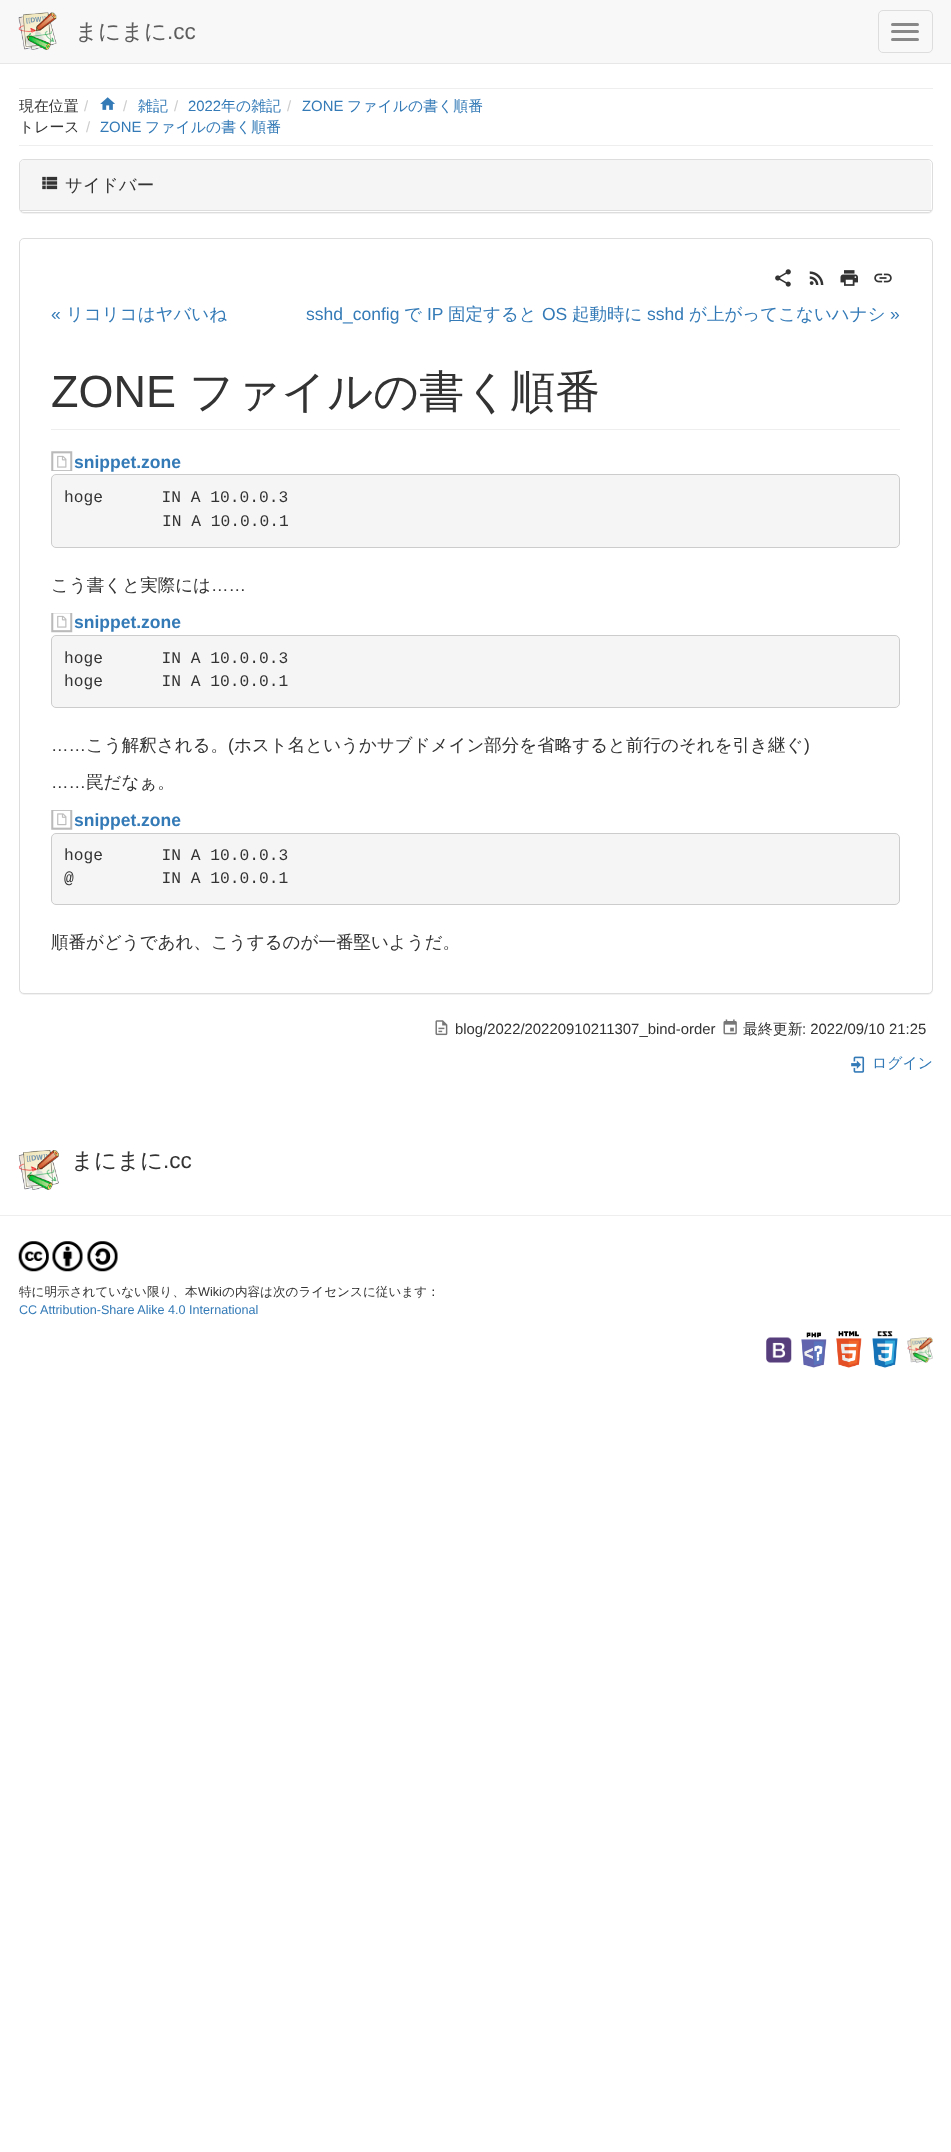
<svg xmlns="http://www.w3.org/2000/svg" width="951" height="2152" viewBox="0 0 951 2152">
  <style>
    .t1 { font: 500 22.5px WenQuanYi Zen Hei; fill: #5e5e5e; }
    .t2 { font: 22.5px Liberation Sans; fill: #5e5e5e; }
    .t3 { font: 500 14.9px WenQuanYi Zen Hei; fill: #333; }
    .t4 { font: 14.9px Liberation Sans; fill: #ccc; }
    .t5 { font: 500 14.9px WenQuanYi Zen Hei; fill: #337ab7; }
    .t6 { font: 14.9px Liberation Sans; fill: #337ab7; }
    .t7 { font: 500 17.5px WenQuanYi Zen Hei; fill: #333; }
    .t8 { font: 17.5px Liberation Sans; fill: #337ab7; }
    .t9 { font: 500 17.5px WenQuanYi Zen Hei; fill: #337ab7; }
    .t10 { font: 45px Liberation Sans; fill: #333; }
    .t11 { font: 500 45px WenQuanYi Zen Hei; fill: #333; }
    .t12 { font: bold 17.5px Liberation Sans; fill: #337ab7; }
    .t13 { font: 16.25px Liberation Mono; fill: #333; }
    .t14 { font: 17.5px Liberation Sans; fill: #333; }
    .t15 { font: 14.9px Liberation Sans; fill: #333; }
    .t16 { font: 500 22.5px WenQuanYi Zen Hei; fill: #333; }
    .t17 { font: 22.5px Liberation Sans; fill: #333; }
    .t18 { font: 500 12.6px WenQuanYi Zen Hei; fill: #333; }
    .t19 { font: 12.6px Liberation Sans; fill: #333; }
    .t20 { font: 12.6px Liberation Sans; fill: #337ab7; }
  </style>
  <rect width="100%" height="100%" fill="#fff"/>
  <rect x="0" y="0" width="951" height="63" fill="#f8f8f8"/>
  <rect x="0" y="63" width="951" height="1" fill="#e7e7e7"/>
  <image x="18" y="12" width="39" height="38" href="images/1.png"/>
  <text x="75" y="39" class="t1">まにまに</text>
  <text x="167" y="39" class="t2">.cc</text>
  <rect x="878.5" y="10.5" width="54" height="42" rx="4.5" fill="none" stroke="#ddd"/>
  <rect x="891" y="23" width="28" height="3" rx="1.5" fill="#888"/>
  <rect x="891" y="30" width="28" height="3" rx="1.5" fill="#888"/>
  <rect x="891" y="38" width="28" height="3" rx="1.5" fill="#888"/>
  <rect x="19" y="88" width="914" height="1" fill="#eee"/>
  <text x="19" y="111" class="t3">現在位置</text>
  <text x="84" y="111" class="t4">/</text>
  <image x="100" y="97" width="15" height="13" href="images/2.png"/>
  <text x="123" y="111" class="t4">/</text>
  <text x="138" y="111" class="t5">雑記</text>
  <text x="174" y="111" class="t4">/</text>
  <text x="188" y="111" class="t6">2022</text>
  <text x="221" y="111" class="t5">年の雑記</text>
  <text x="287" y="111" class="t4">/</text>
  <text x="302" y="111" class="t6">ZONE</text>
  <text x="347" y="111" class="t5">ファイルの書く順番</text>
  <text x="19" y="132" class="t3">トレース</text>
  <text x="86" y="132" class="t4">/</text>
  <text x="100" y="132" class="t6">ZONE</text>
  <text x="145" y="132" class="t5">ファイルの書く順番</text>
  <rect x="19" y="145" width="914" height="1" fill="#eee"/>
  <rect x="19" y="160" width="914" height="54" rx="5" fill="#0000000d" filter="blur(0.5px)"/>
  <rect x="19.5" y="159.5" width="913" height="53" rx="4.5" fill="#fff" stroke="#ddd"/>
  <path d="M24 160H927C929 160 931 162 931 164V211H20V164C20 162 22 160 24 160Z" fill="#f5f5f5"/>
  <rect x="20" y="210" width="911" height="1" fill="#ddd"/>
  <image x="42" y="176" width="16" height="14" href="images/3.png"/>
  <text x="65" y="191" class="t7">サイドバー</text>
  <rect x="19" y="239" width="914" height="756" rx="5" fill="#0000000d" filter="blur(0.5px)"/>
  <rect x="19.5" y="238.5" width="913" height="755" rx="4.5" fill="#fff" stroke="#ddd"/>
  <image x="775" y="269" width="16" height="18" href="images/4.png"/>
  <image x="809" y="271" width="15" height="14" href="images/5.png"/>
  <image x="840" y="270" width="18" height="16" href="images/6.png"/>
  <image x="874" y="273" width="18" height="10" href="images/7.png"/>
  <text x="51" y="320" class="t8">«</text>
  <text x="66" y="320" class="t9">リコリコはヤバいね</text>
  <text x="306" y="320" class="t8">sshd_config</text>
  <text x="404" y="320" class="t9">で</text>
  <text x="427" y="320" class="t8">IP</text>
  <text x="448" y="320" class="t9">固定すると</text>
  <text x="542" y="320" class="t8">OS</text>
  <text x="572" y="320" class="t9">起動時に</text>
  <text x="647" y="320" class="t8">sshd</text>
  <text x="689" y="320" class="t9">が上がってこないハナシ</text>
  <text x="890" y="320" class="t8">»</text>
  <rect x="51" y="429" width="849" height="1" fill="#eee"/>
  <text x="51" y="407" class="t10">ZONE</text>
  <text x="189" y="407" class="t11">ファイルの書く順番</text>
  <image x="51" y="451" width="22" height="20" href="images/8.png"/>
  <text x="74" y="468" class="t12">snippet.zone</text>
  <rect x="51.5" y="474.5" width="848" height="73" rx="4.5" fill="#f5f5f5" stroke="#ccc"/>
  <text x="64" y="502" class="t13" xml:space="preserve">hoge      IN A 10.0.0.3</text>
  <text x="162" y="526" class="t13">IN A 10.0.0.1</text>
  <text x="51" y="591" class="t7">こう書くと実際には</text>
  <text x="211" y="591" class="t14">……</text>
  <image x="51" y="613" width="22" height="20" href="images/9.png"/>
  <text x="74" y="628" class="t12">snippet.zone</text>
  <rect x="51.5" y="635.5" width="848" height="72" rx="4.5" fill="#f5f5f5" stroke="#ccc"/>
  <text x="64" y="663" class="t13" xml:space="preserve">hoge      IN A 10.0.0.3</text>
  <text x="64" y="686" class="t13" xml:space="preserve">hoge      IN A 10.0.0.1</text>
  <text x="51" y="751" class="t14">……</text>
  <text x="86" y="751" class="t7">こう解釈される。</text>
  <text x="228" y="751" class="t14">(</text>
  <text x="234" y="751" class="t7">ホスト名というかサブドメイン部分を省略すると前行のそれを引き継ぐ</text>
  <text x="804" y="751" class="t14">)</text>
  <text x="51" y="788" class="t14">……</text>
  <text x="86" y="788" class="t7">罠だなぁ。</text>
  <image x="51" y="810" width="22" height="20" href="images/10.png"/>
  <text x="74" y="826" class="t12">snippet.zone</text>
  <rect x="51.5" y="833.5" width="848" height="71" rx="4.5" fill="#f5f5f5" stroke="#ccc"/>
  <text x="64" y="860" class="t13" xml:space="preserve">hoge      IN A 10.0.0.3</text>
  <text x="64" y="883" class="t13" xml:space="preserve">@         IN A 10.0.0.1</text>
  <text x="51" y="948" class="t7">順番がどうであれ、こうするのが一番堅いようだ。</text>
  <image x="435" y="1020" width="13" height="16" href="images/11.png"/>
  <text x="455" y="1034" class="t15">blog/2022/20220910211307_bind-order</text>
  <image x="723" y="1019" width="14" height="16" href="images/12.png"/>
  <text x="743" y="1034" class="t3">最終更新</text>
  <text x="802" y="1034" class="t15">: 2022/09/10 21:25</text>
  <image x="851" y="1056" width="14" height="17" href="images/13.png"/>
  <text x="872" y="1068" class="t5">ログイン</text>
  <image x="18" y="1150" width="41" height="40" href="images/14.png"/>
  <text x="71" y="1168" class="t16">まにまに</text>
  <text x="163" y="1168" class="t17">.cc</text>
  <rect x="0" y="1215" width="951" height="1" fill="#eee"/>
  <image x="18" y="1241" width="31" height="31" href="images/15.png"/>
  <image x="52" y="1241" width="31" height="31" href="images/16.png"/>
  <image x="87" y="1241" width="31" height="31" href="images/17.png"/>
  <text x="19" y="1296" class="t18">特に明示されていない限り、本</text>
  <text x="198" y="1296" class="t19">Wiki</text>
  <text x="222" y="1296" class="t18">の内容は次のライセンスに従います：</text>
  <text x="19" y="1314" class="t20">CC Attribution-Share Alike 4.0 International</text>
  <image x="766" y="1337" width="26" height="26" href="images/18.png"/>
  <image x="801" y="1332" width="26" height="36" href="images/19.png"/>
  <image x="836" y="1331" width="26" height="37" href="images/20.png"/>
  <image x="872" y="1331" width="26" height="37" href="images/21.png"/>
  <image x="907" y="1337" width="26" height="26" href="images/22.png"/>
</svg>
